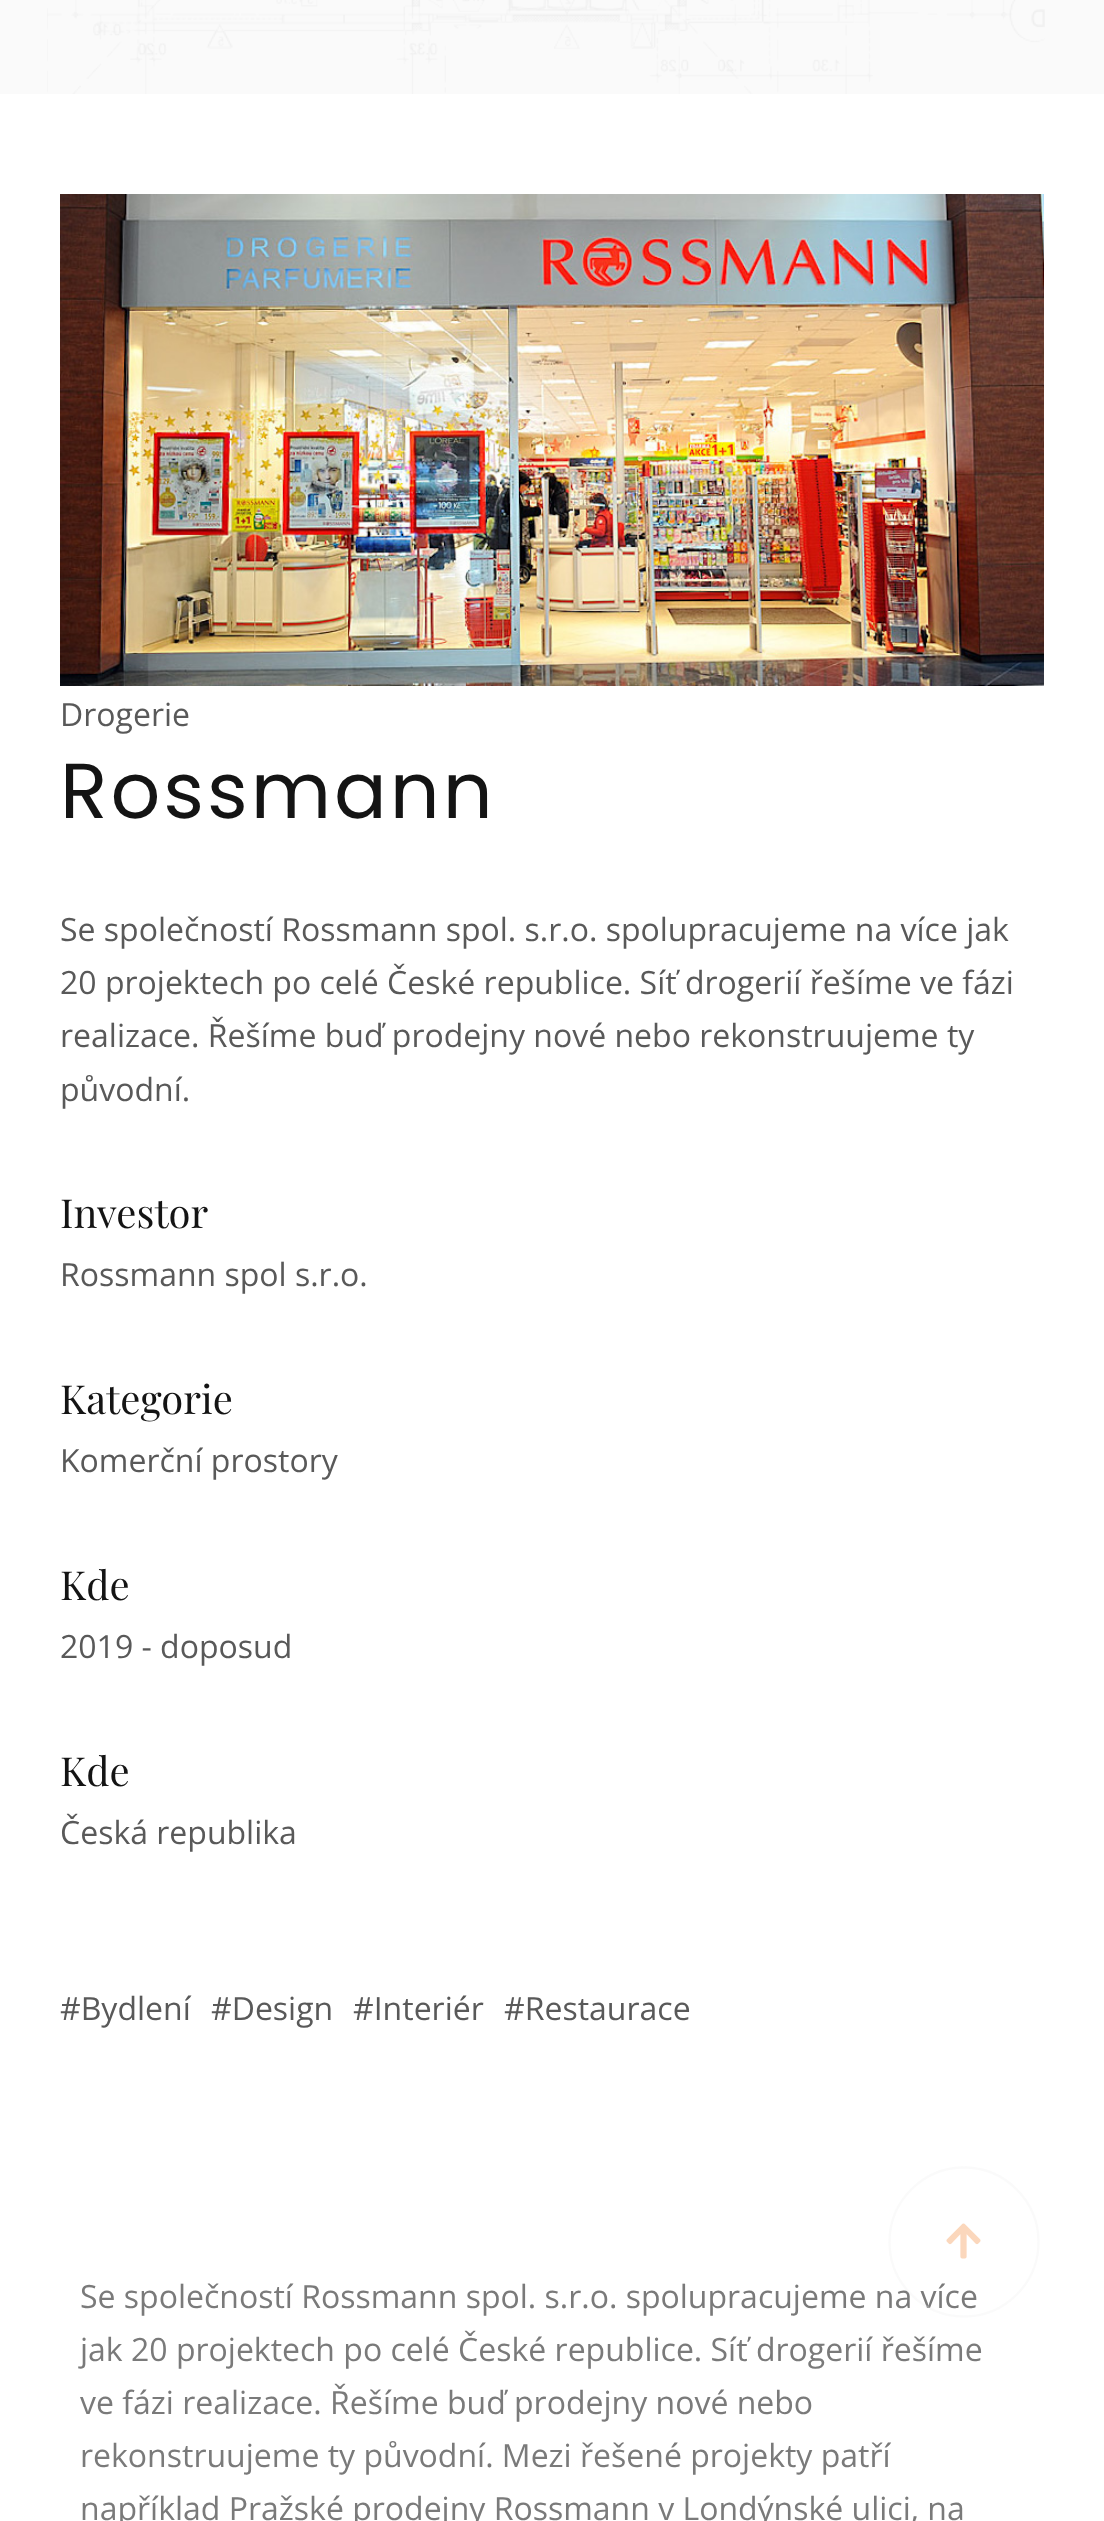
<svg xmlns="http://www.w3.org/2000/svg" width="1104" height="2521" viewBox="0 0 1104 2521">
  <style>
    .t1 { font: 32px Open Sans; fill: #595959; }
    .t2 { font: 78px Poppins; letter-spacing: 3px; fill: #141414; }
    .t3 { font: 40px Playfair Display; fill: #141414; }
    .t4 { font: 32px Open Sans; fill: #7a7a7a; }
  </style>
  <rect width="100%" height="100%" fill="#fff"/>
  <rect x="0" y="0" width="1104" height="94" fill="#fafafa"/>
  <image x="47" y="0" width="998" height="94" href="images/1.png"/>
  <image x="60" y="194" width="984" height="492" href="images/2.png"/>
  <text x="60" y="726" class="t1">Drogerie</text>
  <text x="60" y="818" class="t2">Rossmann</text>
  <text x="60" y="941" class="t1">Se společností Rossmann spol. s.r.o. spolupracujeme na více jak</text>
  <text x="60" y="994" class="t1">20 projektech po celé České republice. Síť drogerií řešíme ve fázi</text>
  <text x="60" y="1047" class="t1">realizace. Řešíme buď prodejny nové nebo rekonstruujeme ty</text>
  <text x="60" y="1101" class="t1">původní.</text>
  <text x="60" y="1228" class="t3">Investor</text>
  <text x="60" y="1286" class="t1">Rossmann spol s.r.o.</text>
  <text x="60" y="1414" class="t3">Kategorie</text>
  <text x="60" y="1472" class="t1">Komerční prostory</text>
  <text x="60" y="1600" class="t3">Kde</text>
  <text x="60" y="1658" class="t1">2019 - doposud</text>
  <text x="60" y="1786" class="t3">Kde</text>
  <text x="60" y="1844" class="t1">Česká republika</text>
  <text x="60" y="2020" class="t1">#Bydlení</text>
  <text x="211" y="2020" class="t1">#Design</text>
  <text x="353" y="2020" class="t1">#Interiér</text>
  <text x="504" y="2020" class="t1">#Restaurace</text>
  <text x="80" y="2308" class="t4">Se společností Rossmann spol. s.r.o. spolupracujeme na více</text>
  <text x="80" y="2361" class="t4">jak 20 projektech po celé České republice. Síť drogerií řešíme</text>
  <text x="80" y="2414" class="t4">ve fázi realizace. Řešíme buď prodejny nové nebo</text>
  <text x="80" y="2467" class="t4">rekonstruujeme ty původní. Mezi řešené projekty patří</text>
  <text x="80" y="2520" class="t4">například Pražské prodejny Rossmann v Londýnské ulici, na</text>
  <path d="M964 2167.5C1005 2167.5 1038.5 2201 1038.5 2242C1038.5 2283 1005 2316.5 964 2316.5C923 2316.5 889.5 2283 889.5 2242C889.5 2201 923 2167.5 964 2167.5Z" fill="none" stroke="#f0f0f04d" stroke-width="2.3"/>
  <image x="946" y="2223" width="35" height="36" href="images/3.png"/>
</svg>
